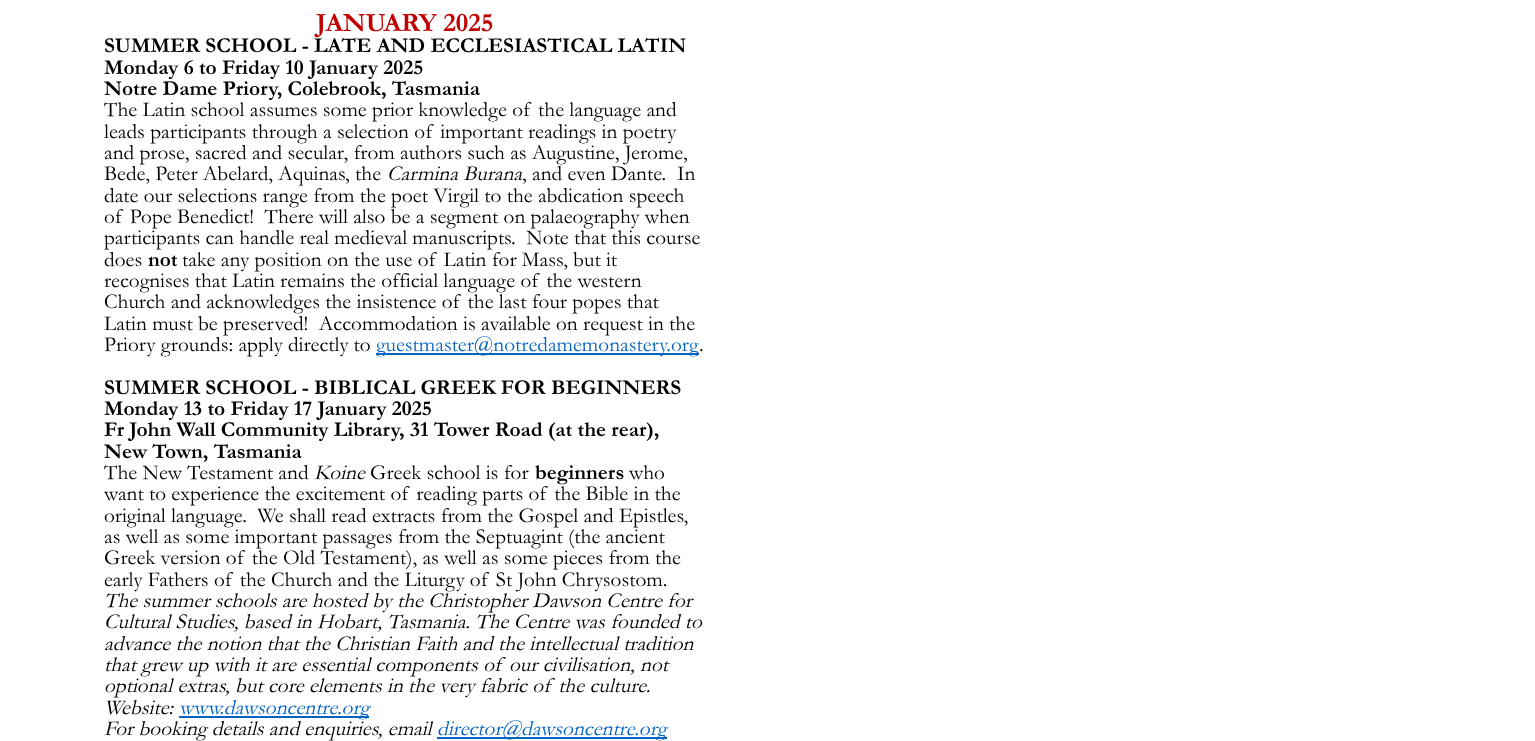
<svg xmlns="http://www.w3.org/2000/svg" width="1535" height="741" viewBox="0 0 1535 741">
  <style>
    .t1 { font: bold 26.75px Garamond; fill: #c00000; }
    .t2 { font: bold 21.3px Garamond; fill: #000; }
    .t3 { font: 21.3px Garamond; fill: #000; }
    .t4 { font: italic 21.3px Garamond; fill: #000; }
    .t5 { font: 21.3px Garamond; fill: #0563c1; }
    .t6 { font: italic 21.3px Garamond; fill: #0563c1; }
  </style>
  <rect width="100%" height="100%" fill="#fff"/>
  <text x="316" y="31" class="t1">JANUARY 2025</text>
  <text x="104" y="52" class="t2">SUMMER SCHOOL - LATE AND ECCLESIASTICAL LATIN</text>
  <text x="104" y="74" class="t2">Monday 6 to Friday 10 January 2025</text>
  <text x="104" y="95" class="t2">Notre Dame Priory, Colebrook, Tasmania</text>
  <text x="104" y="116" class="t3">The Latin school assumes some prior knowledge of the language and</text>
  <text x="104" y="138" class="t3">leads participants through a selection of important readings in poetry</text>
  <text x="104" y="159" class="t3">and prose, sacred and secular, from authors such as Augustine, Jerome,</text>
  <text x="104" y="180" class="t3">Bede, Peter Abelard, Aquinas, the</text>
  <text x="387" y="180" class="t4">Carmina Burana</text>
  <text x="522" y="180" class="t3" xml:space="preserve">, and even Dante.  In</text>
  <text x="104" y="202" class="t3">date our selections range from the poet Virgil to the abdication speech</text>
  <text x="104" y="223" class="t3" xml:space="preserve">of Pope Benedict!  There will also be a segment on palaeography when</text>
  <text x="104" y="244" class="t3" xml:space="preserve">participants can handle real medieval manuscripts.  Note that this course</text>
  <text x="104" y="266" class="t3">does</text>
  <text x="148" y="266" class="t2">not</text>
  <text x="182" y="266" class="t3">take any position on the use of Latin for Mass, but it</text>
  <text x="104" y="287" class="t3">recognises that Latin remains the official language of the western</text>
  <text x="104" y="308" class="t3">Church and acknowledges the insistence of the last four popes that</text>
  <text x="104" y="330" class="t3" xml:space="preserve">Latin must be preserved!  Accommodation is available on request in the</text>
  <text x="104" y="351" class="t3">Priory grounds: apply directly to</text>
  <rect x="376" y="353" width="323" height="2" fill="#0563c1"/>
  <text x="376" y="351" class="t5">guestmaster@notredamemonastery.org</text>
  <text x="699" y="351" class="t3">.</text>
  <text x="104" y="394" class="t2">SUMMER SCHOOL - BIBLICAL GREEK FOR BEGINNERS</text>
  <text x="104" y="415" class="t2">Monday 13 to Friday 17 January 2025</text>
  <text x="104" y="436" class="t2">Fr John Wall Community Library, 31 Tower Road (at the rear),</text>
  <text x="104" y="458" class="t2">New Town, Tasmania</text>
  <text x="104" y="479" class="t3">The New Testament and</text>
  <text x="314" y="479" class="t4">Koine</text>
  <text x="370" y="479" class="t3">Greek school is for</text>
  <text x="535" y="479" class="t2">beginners</text>
  <text x="629" y="479" class="t3">who</text>
  <text x="104" y="500" class="t3">want to experience the excitement of reading parts of the Bible in the</text>
  <text x="104" y="522" class="t3" xml:space="preserve">original language.  We shall read extracts from the Gospel and Epistles,</text>
  <text x="104" y="543" class="t3">as well as some important passages from the Septuagint (the ancient</text>
  <text x="104" y="564" class="t3">Greek version of the Old Testament), as well as some pieces from the</text>
  <text x="104" y="586" class="t3">early Fathers of the Church and the Liturgy of St John Chrysostom.</text>
  <text x="104" y="607" class="t4">The summer schools are hosted by the Christopher Dawson Centre for</text>
  <text x="104" y="628" class="t4">Cultural Studies, based in Hobart, Tasmania. The Centre was founded to</text>
  <text x="104" y="650" class="t4">advance the notion that the Christian Faith and the intellectual tradition</text>
  <text x="104" y="671" class="t4">that grew up with it are essential components of our civilisation, not</text>
  <text x="104" y="692" class="t4">optional extras, but core elements in the very fabric of the culture.</text>
  <text x="104" y="714" class="t4">Website:</text>
  <rect x="179" y="716" width="190" height="2" fill="#0563c1"/>
  <text x="179" y="714" class="t6">www.dawsoncentre.org</text>
  <text x="104" y="735" class="t4">For booking details and enquiries, email</text>
  <rect x="437" y="737" width="230" height="2" fill="#0563c1"/>
  <text x="437" y="735" class="t6">director@dawsoncentre.org</text>
</svg>
